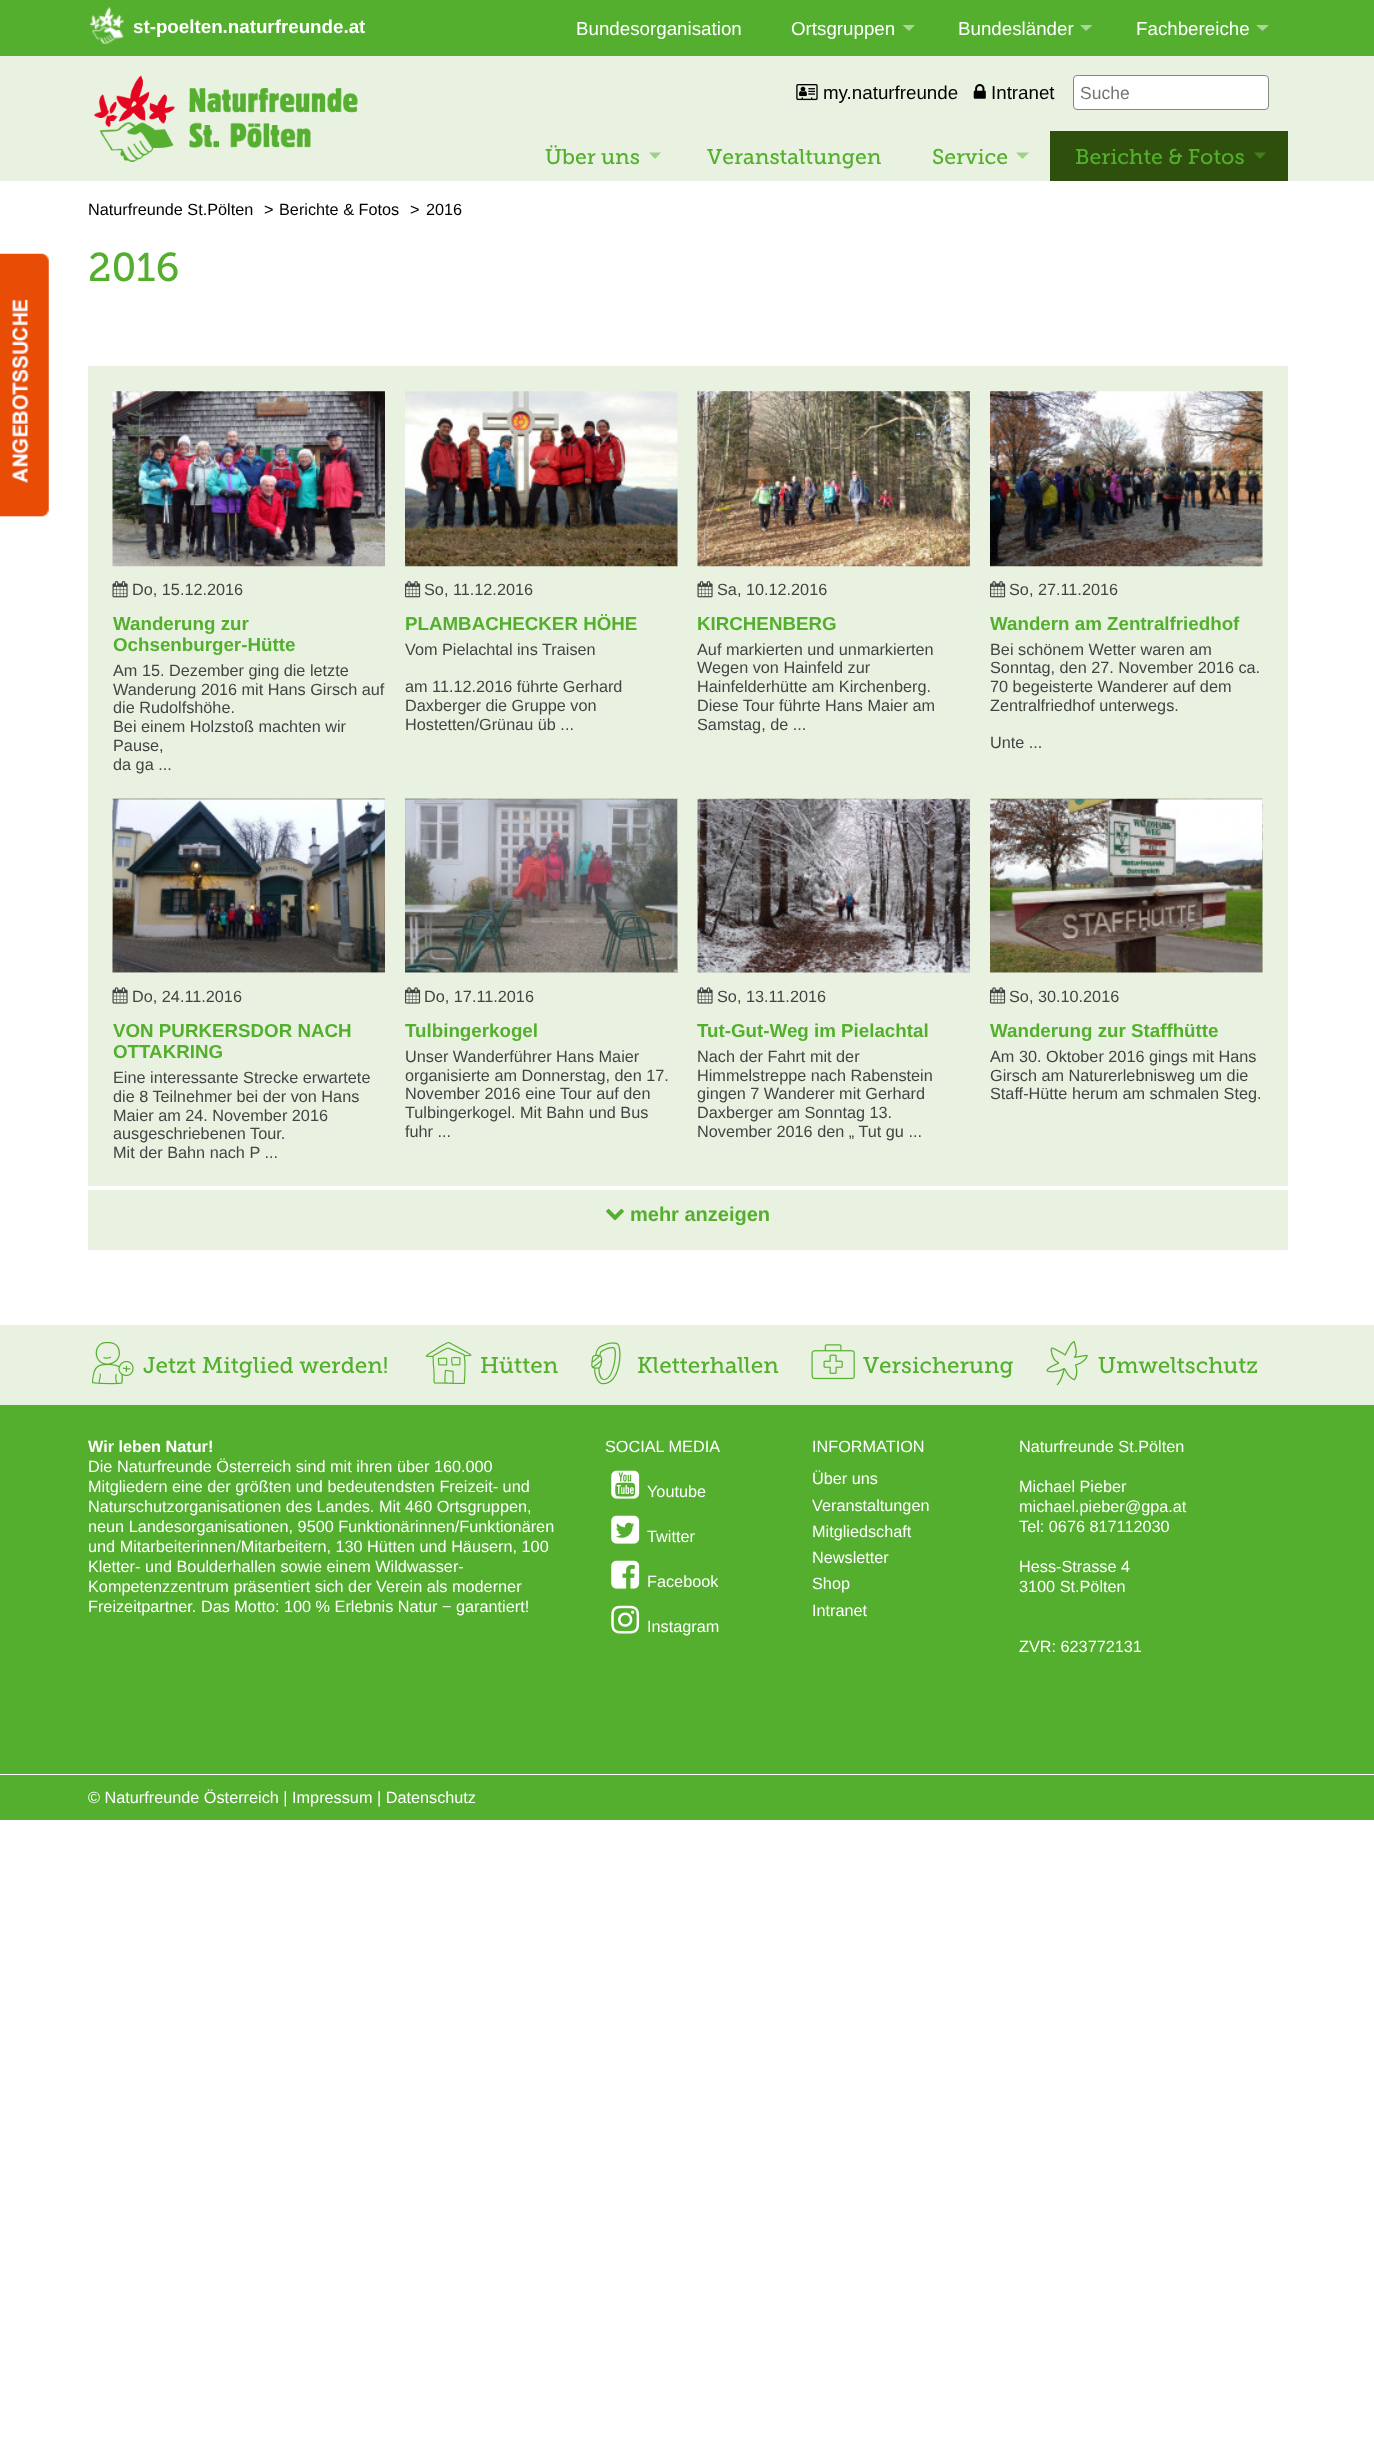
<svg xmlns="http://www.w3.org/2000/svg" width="1374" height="2455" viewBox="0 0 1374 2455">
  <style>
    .t1 { font: bold 18.75px Liberation Sans; fill: #fff; }
    .t2 { font: 18.75px Liberation Sans; fill: #fff; }
    .t3 { font: 18.75px Liberation Sans; fill: #000; }
    .t4 { font: 17.5px Liberation Sans; fill: #757575; }
    .t5 { font: 21.25px 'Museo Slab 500'; fill: #54af2e; }
    .t6 { font: 16.25px Liberation Sans; fill: #000; }
    .t7 { font: 40px 'Museo Slab 500'; fill: #54af2e; }
    .t8 { font: 16.25px Liberation Sans; fill: #444; }
    .t9 { font: bold 18.75px Liberation Sans; fill: #54af2e; }
    .t10 { font: bold 20px Liberation Sans; fill: #54af2e; }
    .t11 { font: 22.5px 'Museo Slab 500'; fill: #54af2e; }
    .t12 { font: bold 16.25px Liberation Sans; fill: #fff; }
    .t13 { font: 16.25px Liberation Sans; fill: #fff; }
  </style>
  <rect width="100%" height="100%" fill="#fff"/>
  <rect x="0" y="0" width="1374" height="56" fill="#54af2e"/>
  <image x="89" y="7" width="35" height="37" href="images/1.png"/>
  <text x="133" y="33" class="t1">st-poelten.naturfreunde.at</text>
  <text x="576" y="35" class="t2">Bundesorganisation</text>
  <text x="791" y="35" class="t2">Ortsgruppen</text>
  <path d="M902.5 25H915L909 31Z" fill="#aad797"/>
  <text x="958" y="35" class="t2">Bundesländer</text>
  <path d="M1080 25H1092.5L1086 31Z" fill="#aad797"/>
  <text x="1136" y="35" class="t2">Fachbereiche</text>
  <path d="M1256 25H1269L1262.5 31Z" fill="#aad797"/>
  <rect x="0" y="56" width="1374" height="125" fill="#e9f2e1"/>
  <image x="93" y="75" width="265" height="88" href="images/2.png"/>
  <image x="796" y="84" width="22" height="17" href="images/3.png"/>
  <text x="823" y="99" class="t3">my.naturfreunde</text>
  <image x="973" y="84" width="13" height="15" href="images/4.png"/>
  <text x="991" y="99" class="t3">Intranet</text>
  <rect x="1073.5" y="75.5" width="195" height="34" rx="3.5" fill="#fff" stroke="#888"/>
  <text x="1080" y="99" class="t4">Suche</text>
  <text x="545" y="164" class="t5">Über uns</text>
  <path d="M649 152.5H661L655 159Z" fill="#9fd188"/>
  <text x="707" y="164" class="t5">Veranstaltungen</text>
  <text x="932" y="164" class="t5">Service</text>
  <path d="M1016 152.5H1029L1022.5 159Z" fill="#9fd188"/>
  <rect x="1050" y="131" width="238" height="50" fill="#2f4f0d"/>
  <text x="1075" y="164" class="t5">Berichte &amp; Fotos</text>
  <path d="M1254 152.5H1266L1260 159Z" fill="#427f1e"/>
  <image x="0" y="253" width="49" height="264" href="images/5.png"/>
  <text x="88" y="215" class="t6">Naturfreunde St.Pölten</text>
  <text x="264" y="215" class="t6">&gt;</text>
  <text x="279" y="215" class="t6">Berichte &amp; Fotos</text>
  <text x="410" y="215" class="t6">&gt;</text>
  <text x="426" y="215" class="t6">2016</text>
  <text x="88" y="281" class="t7">2016</text>
  <rect x="88" y="366" width="1200" height="820" fill="#e9f2e1"/>
  <image x="112" y="391" width="273" height="176" href="images/6.png"/>
  <image x="112" y="581" width="16" height="17" href="images/7.png"/>
  <text x="132" y="595" class="t8">Do, 15.12.2016</text>
  <text x="113" y="630" class="t9">Wanderung zur</text>
  <text x="113" y="651" class="t9">Ochsenburger-Hütte</text>
  <text x="113" y="676" class="t8">Am 15. Dezember ging die letzte</text>
  <text x="113" y="695" class="t8">Wanderung 2016 mit Hans Girsch auf</text>
  <text x="113" y="713" class="t8">die Rudolfshöhe.</text>
  <text x="113" y="732" class="t8">Bei einem Holzstoß machten wir</text>
  <text x="113" y="751" class="t8">Pause,</text>
  <text x="113" y="770" class="t8">da ga ...</text>
  <image x="405" y="391" width="273" height="176" href="images/8.png"/>
  <image x="405" y="581" width="16" height="17" href="images/9.png"/>
  <text x="424" y="595" class="t8">So, 11.12.2016</text>
  <text x="405" y="630" class="t9">PLAMBACHECKER HÖHE</text>
  <text x="405" y="655" class="t8">Vom Pielachtal ins Traisen</text>
  <text x="405" y="692" class="t8">am 11.12.2016 führte Gerhard</text>
  <text x="405" y="711" class="t8">Daxberger die Gruppe von</text>
  <text x="405" y="730" class="t8">Hostetten/Grünau üb ...</text>
  <image x="697" y="391" width="273" height="176" href="images/10.png"/>
  <image x="697" y="581" width="16" height="17" href="images/7.png"/>
  <text x="717" y="595" class="t8">Sa, 10.12.2016</text>
  <text x="697" y="630" class="t9">KIRCHENBERG</text>
  <text x="697" y="655" class="t8">Auf markierten und unmarkierten</text>
  <text x="697" y="673" class="t8">Wegen von Hainfeld zur</text>
  <text x="697" y="692" class="t8">Hainfelderhütte am Kirchenberg.</text>
  <text x="697" y="711" class="t8">Diese Tour führte Hans Maier am</text>
  <text x="697" y="730" class="t8">Samstag, de ...</text>
  <image x="990" y="391" width="273" height="176" href="images/11.png"/>
  <image x="990" y="581" width="16" height="17" href="images/9.png"/>
  <text x="1009" y="595" class="t8">So, 27.11.2016</text>
  <text x="990" y="630" class="t9">Wandern am Zentralfriedhof</text>
  <text x="990" y="655" class="t8">Bei schönem Wetter waren am</text>
  <text x="990" y="673" class="t8">Sonntag, den 27. November 2016 ca.</text>
  <text x="990" y="692" class="t8">70 begeisterte Wanderer auf dem</text>
  <text x="990" y="711" class="t8">Zentralfriedhof unterwegs.</text>
  <text x="990" y="748" class="t8">Unte ...</text>
  <image x="112" y="798" width="273" height="175" href="images/12.png"/>
  <image x="112" y="987" width="16" height="17" href="images/13.png"/>
  <text x="132" y="1002" class="t8">Do, 24.11.2016</text>
  <text x="113" y="1037" class="t9">VON PURKERSDOR NACH</text>
  <text x="113" y="1058" class="t9">OTTAKRING</text>
  <text x="113" y="1083" class="t8">Eine interessante Strecke erwartete</text>
  <text x="113" y="1102" class="t8">die 8 Teilnehmer bei der von Hans</text>
  <text x="113" y="1121" class="t8">Maier am 24. November 2016</text>
  <text x="113" y="1139" class="t8">ausgeschriebenen Tour.</text>
  <text x="113" y="1158" class="t8">Mit der Bahn nach P ...</text>
  <image x="405" y="798" width="273" height="175" href="images/14.png"/>
  <image x="405" y="987" width="16" height="17" href="images/15.png"/>
  <text x="424" y="1002" class="t8">Do, 17.11.2016</text>
  <text x="405" y="1037" class="t9">Tulbingerkogel</text>
  <text x="405" y="1062" class="t8">Unser Wanderführer Hans Maier</text>
  <text x="405" y="1081" class="t8">organisierte am Donnerstag, den 17.</text>
  <text x="405" y="1099" class="t8">November 2016 eine Tour auf den</text>
  <text x="405" y="1118" class="t8">Tulbingerkogel. Mit Bahn und Bus</text>
  <text x="405" y="1137" class="t8">fuhr ...</text>
  <image x="697" y="798" width="273" height="175" href="images/16.png"/>
  <image x="697" y="987" width="16" height="17" href="images/13.png"/>
  <text x="717" y="1002" class="t8">So, 13.11.2016</text>
  <text x="697" y="1037" class="t9">Tut-Gut-Weg im Pielachtal</text>
  <text x="697" y="1062" class="t8">Nach der Fahrt mit der</text>
  <text x="697" y="1081" class="t8">Himmelstreppe nach Rabenstein</text>
  <text x="697" y="1099" class="t8">gingen 7 Wanderer mit Gerhard</text>
  <text x="697" y="1118" class="t8">Daxberger am Sonntag 13.</text>
  <text x="697" y="1137" class="t8">November 2016 den „ Tut gu ...</text>
  <image x="990" y="798" width="273" height="175" href="images/17.png"/>
  <image x="990" y="987" width="16" height="17" href="images/15.png"/>
  <text x="1009" y="1002" class="t8">So, 30.10.2016</text>
  <text x="990" y="1037" class="t9">Wanderung zur Staffhütte</text>
  <text x="990" y="1062" class="t8">Am 30. Oktober 2016 gings mit Hans</text>
  <text x="990" y="1081" class="t8">Girsch am Naturerlebnisweg um die</text>
  <text x="990" y="1099" class="t8">Staff-Hütte herum am schmalen Steg.</text>
  <rect x="88" y="1190" width="1200" height="60" fill="#e9f2e1"/>
  <image x="606" y="1208" width="18" height="13" href="images/18.png"/>
  <text x="630" y="1221" class="t10">mehr anzeigen</text>
  <rect x="0" y="1325" width="1374" height="80" fill="#e9f2e1"/>
  <image x="92" y="1341" width="42" height="44" href="images/19.png"/>
  <text x="143" y="1373" class="t11">Jetzt Mitglied werden!</text>
  <image x="425" y="1342" width="47" height="43" href="images/20.png"/>
  <text x="480" y="1373" class="t11">Hütten</text>
  <image x="591" y="1342" width="30" height="43" href="images/21.png"/>
  <text x="637" y="1373" class="t11">Kletterhallen</text>
  <image x="811" y="1344" width="44" height="36" href="images/22.png"/>
  <text x="863" y="1373" class="t11">Versicherung</text>
  <image x="1046" y="1341" width="42" height="45" href="images/23.png"/>
  <text x="1098" y="1373" class="t11">Umweltschutz</text>
  <rect x="0" y="1405" width="1374" height="415" fill="#54af2e"/>
  <text x="88" y="1452" class="t12">Wir leben Natur!</text>
  <text x="88" y="1472" class="t13">Die Naturfreunde Österreich sind mit ihren über 160.000</text>
  <text x="88" y="1492" class="t13">Mitgliedern eine der größten und bedeutendsten Freizeit- und</text>
  <text x="88" y="1512" class="t13">Naturschutzorganisationen des Landes. Mit 460 Ortsgruppen,</text>
  <text x="88" y="1532" class="t13">neun Landesorganisationen, 9500 Funktionärinnen/Funktionären</text>
  <text x="88" y="1552" class="t13">und Mitarbeiterinnen/Mitarbeitern, 130 Hütten und Häusern, 100</text>
  <text x="88" y="1572" class="t13">Kletter- und Boulderhallen sowie einem Wildwasser-</text>
  <text x="88" y="1592" class="t13">Kompetenzzentrum präsentiert sich der Verein als moderner</text>
  <text x="88" y="1612" class="t13">Freizeitpartner. Das Motto: 100 % Erlebnis Natur − garantiert!</text>
  <text x="605" y="1452" class="t13">SOCIAL MEDIA</text>
  <image x="611" y="1470" width="29" height="29" href="images/24.png"/>
  <text x="647" y="1497" class="t13">Youtube</text>
  <image x="611" y="1515" width="29" height="29" href="images/25.png"/>
  <text x="647" y="1542" class="t13">Twitter</text>
  <image x="611" y="1560" width="29" height="29" href="images/26.png"/>
  <text x="647" y="1587" class="t13">Facebook</text>
  <image x="611" y="1605" width="29" height="29" href="images/27.png"/>
  <text x="647" y="1632" class="t13">Instagram</text>
  <text x="812" y="1452" class="t13">INFORMATION</text>
  <text x="812" y="1484" class="t13">Über uns</text>
  <text x="812" y="1511" class="t13">Veranstaltungen</text>
  <text x="812" y="1537" class="t13">Mitgliedschaft</text>
  <text x="812" y="1563" class="t13">Newsletter</text>
  <text x="812" y="1589" class="t13">Shop</text>
  <text x="812" y="1616" class="t13">Intranet</text>
  <text x="1019" y="1452" class="t13">Naturfreunde St.Pölten</text>
  <text x="1019" y="1492" class="t13">Michael Pieber</text>
  <text x="1019" y="1512" class="t13">michael.pieber@gpa.at</text>
  <text x="1019" y="1532" class="t13">Tel: 0676 817112030</text>
  <text x="1019" y="1572" class="t13">Hess-Strasse 4</text>
  <text x="1019" y="1592" class="t13">3100 St.Pölten</text>
  <text x="1019" y="1652" class="t13">ZVR: 623772131</text>
  <rect x="0" y="1774" width="1374" height="1" fill="#fff"/>
  <text x="88" y="1803" class="t13">© Naturfreunde Österreich | Impressum | Datenschutz</text>
</svg>
